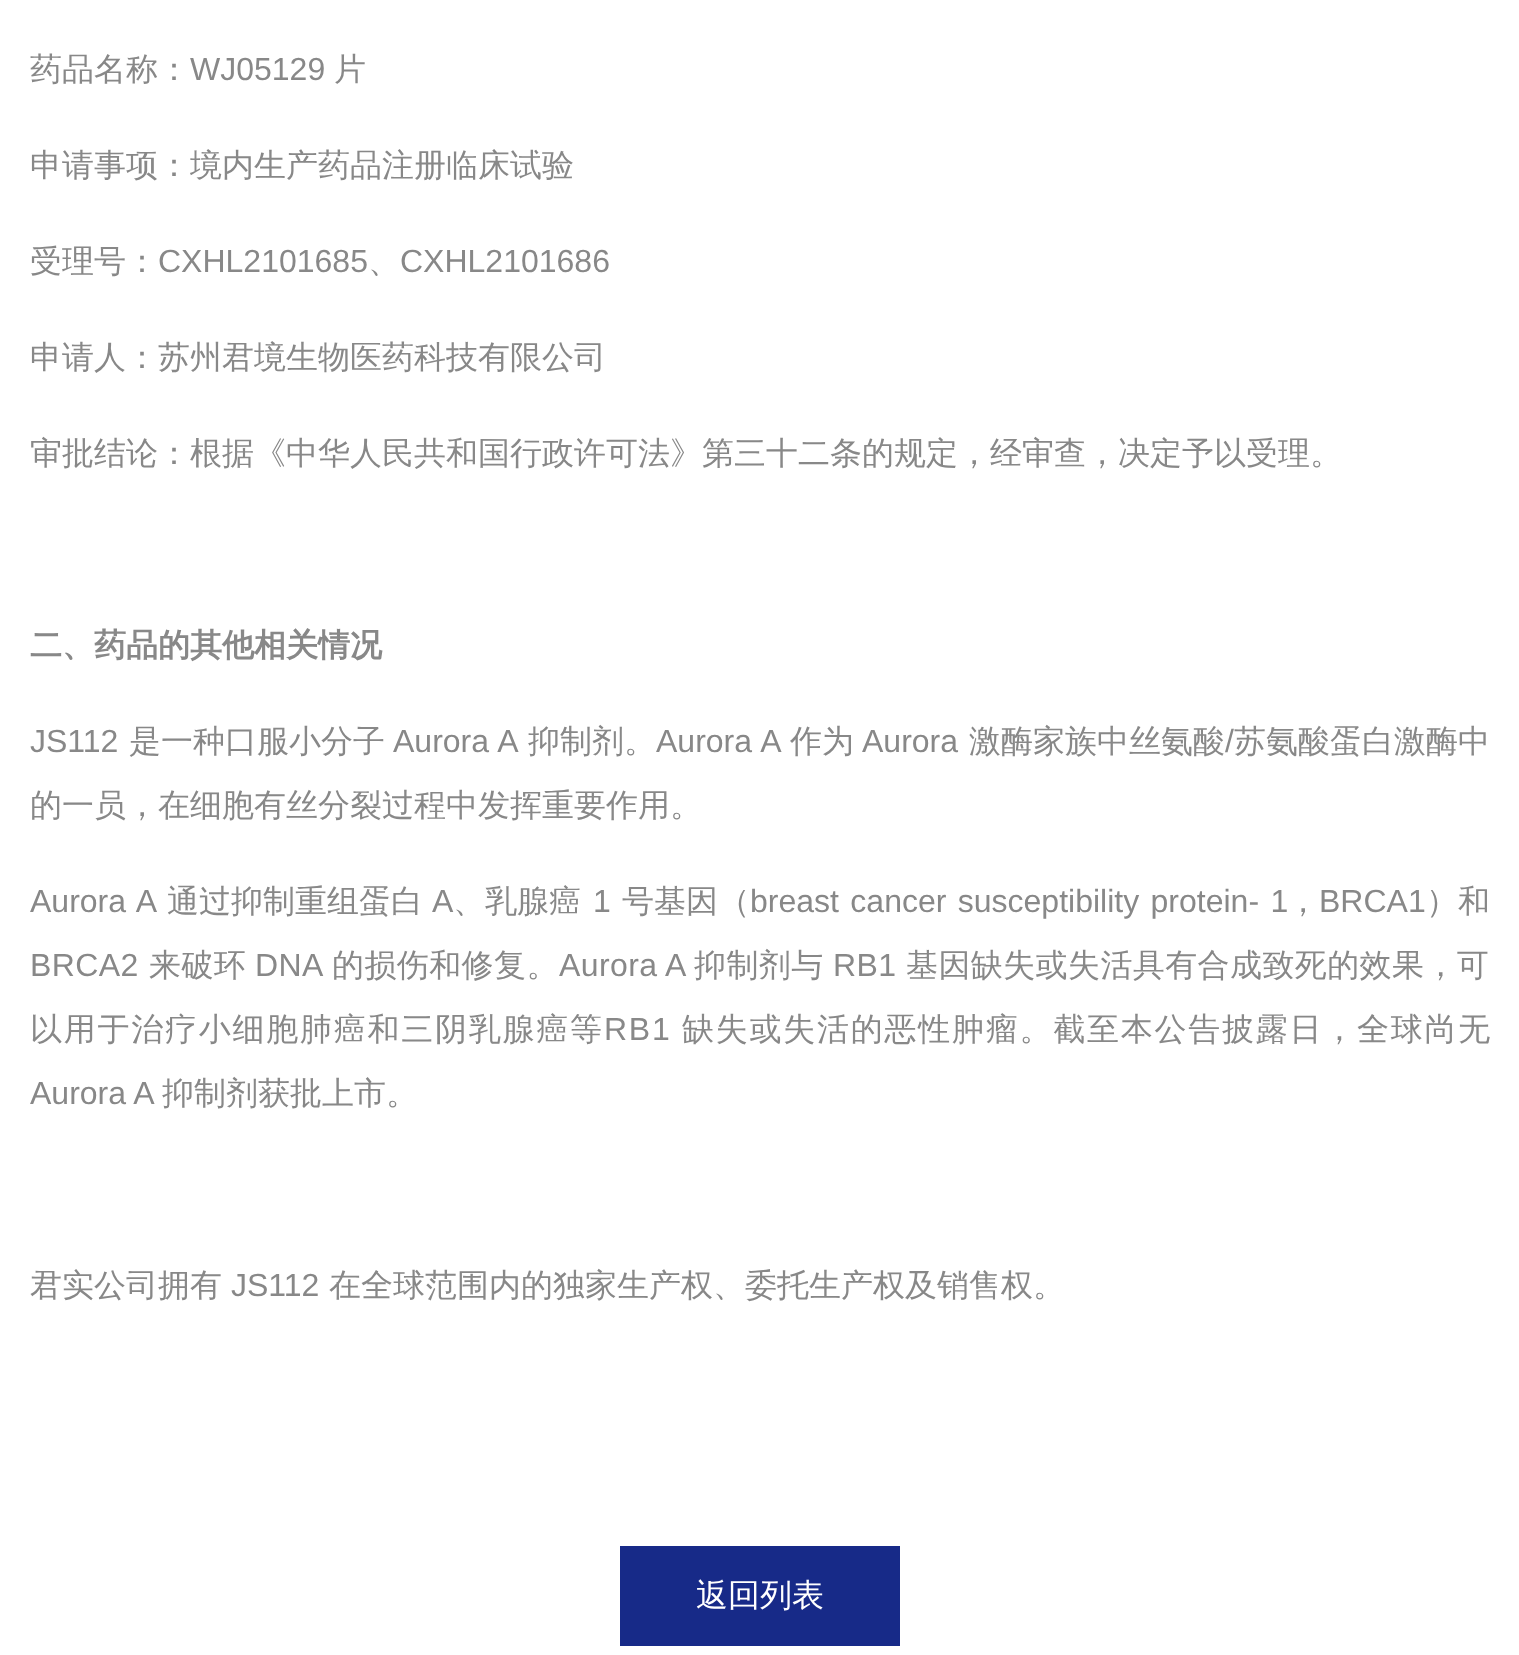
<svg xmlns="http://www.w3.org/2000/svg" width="1519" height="1655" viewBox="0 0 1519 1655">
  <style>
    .t1 { font: 500 32px WenQuanYi Zen Hei; fill: #888; }
    .t2 { font: 32px Liberation Sans; fill: #888; }
    .t3 { font: bold 32px WenQuanYi Zen Hei; fill: #888; }
    .t4 { font: 32px Liberation Sans; letter-spacing: 0.4px; fill: #888; }
    .t5 { font: 500 32px WenQuanYi Zen Hei; letter-spacing: 0.4px; fill: #888; }
    .t6 { font: 500 32px WenQuanYi Zen Hei; letter-spacing: 1.75px; fill: #888; }
    .t7 { font: 32px Liberation Sans; letter-spacing: 1.75px; fill: #888; }
    .t8 { font: 500 32px WenQuanYi Zen Hei; fill: #fff; }
  </style>
  <rect width="100%" height="100%" fill="#fff"/>
  <text x="30" y="80" class="t1">药品名称：</text>
  <text x="190" y="80" class="t2">WJ05129</text>
  <text x="334" y="80" class="t1">片</text>
  <text x="30" y="176" class="t1">申请事项：境内生产药品注册临床试验</text>
  <text x="30" y="272" class="t1">受理号：</text>
  <text x="158" y="272" class="t2">CXHL2101685</text>
  <text x="368" y="272" class="t1">、</text>
  <text x="400" y="272" class="t2">CXHL2101686</text>
  <text x="30" y="368" class="t1">申请人：苏州君境生物医药科技有限公司</text>
  <text x="30" y="464" class="t1">审批结论：根据《中华人民共和国行政许可法》第三十二条的规定，经审查，决定予以受理。</text>
  <text x="30" y="656" class="t3">二、药品的其他相关情况</text>
  <text x="30" y="752" class="t2">JS112</text>
  <text x="129" y="752" class="t1">是一种口服小分子</text>
  <text x="393" y="752" word-spacing="1" class="t2">Aurora A</text>
  <text x="528" y="752" class="t1">抑制剂。</text>
  <text x="656" y="752" word-spacing="1" class="t2">Aurora A</text>
  <text x="790" y="752" class="t1">作为</text>
  <text x="862" y="752" class="t2">Aurora</text>
  <text x="969" y="752" class="t1">激酶家族中丝氨酸</text>
  <text x="1225" y="752" class="t2">/</text>
  <text x="1234" y="752" class="t1">苏氨酸蛋白激酶中</text>
  <text x="30" y="816" class="t1">的一员，在细胞有丝分裂过程中发挥重要作用。</text>
  <text x="30" y="912" word-spacing="2.5" class="t2">Aurora A</text>
  <text x="167" y="912" class="t1">通过抑制重组蛋白</text>
  <text x="432" y="912" class="t2">A</text>
  <text x="453" y="912" class="t1">、乳腺癌</text>
  <text x="593" y="912" class="t2">1</text>
  <text x="622" y="912" class="t1">号基因（</text>
  <text x="750" y="912" word-spacing="2.5" class="t2">breast cancer susceptibility protein- 1</text>
  <text x="1287" y="912" class="t1">，</text>
  <text x="1319" y="912" class="t2">BRCA1</text>
  <text x="1426" y="912" class="t1">）和</text>
  <text x="30" y="976" class="t4">BRCA2</text>
  <text x="149" y="976" class="t5">来破环</text>
  <text x="255" y="976" class="t4">DNA</text>
  <text x="332" y="976" class="t5">的损伤和修复。</text>
  <text x="559" y="976" class="t4">Aurora A</text>
  <text x="694" y="976" class="t5">抑制剂与</text>
  <text x="833" y="976" class="t4">RB1</text>
  <text x="906" y="976" class="t5">基因缺失或失活具有合成致死的效果，可</text>
  <text x="30" y="1040" class="t6">以用于治疗小细胞肺癌和三阴乳腺癌等</text>
  <text x="604" y="1040" class="t7">RB1</text>
  <text x="682" y="1040" class="t6">缺失或失活的恶性肿瘤。截至本公告披露日，全球尚无</text>
  <text x="30" y="1104" class="t2">Aurora A</text>
  <text x="162" y="1104" class="t1">抑制剂获批上市。</text>
  <text x="30" y="1296" class="t1">君实公司拥有</text>
  <text x="231" y="1296" class="t2">JS112</text>
  <text x="329" y="1296" class="t1">在全球范围内的独家生产权、委托生产权及销售权。</text>
  <rect x="620" y="1546" width="280" height="100" fill="#172a88"/>
  <text x="696" y="1606" class="t8">返回列表</text>
</svg>
